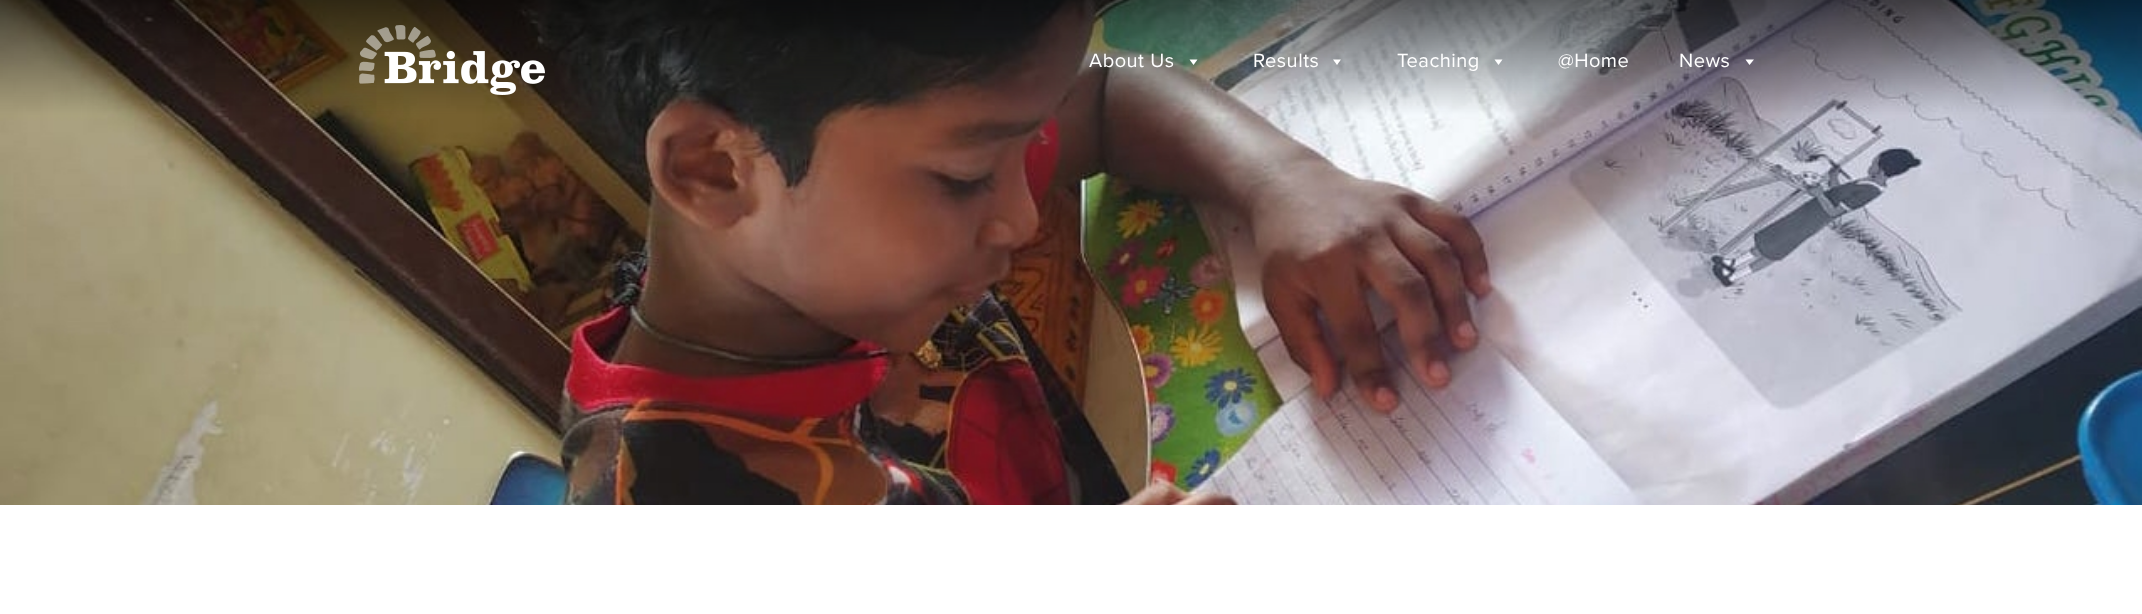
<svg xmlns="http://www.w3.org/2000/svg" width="2142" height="614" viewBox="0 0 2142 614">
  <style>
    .t1 { font: 20px Proxima Nova; letter-spacing: 0.5px; fill: #fff; }
  </style>
  <rect width="100%" height="100%" fill="#fff"/>
  <image x="0" y="0" width="2142" height="505" href="images/1.png"/>
  <image x="359" y="25" width="186" height="70" href="images/2.png"/>
  <text x="1089" y="67" class="t1">About Us</text>
  <path d="M1197.5 59.5L1193.5 65L1189.5 59.5Z" fill="#fff"/>
  <text x="1253" y="67" class="t1">Results</text>
  <path d="M1341 59.5L1337 65L1333 59.5Z" fill="#fff"/>
  <text x="1397" y="67" class="t1">Teaching</text>
  <path d="M1502.5 59.5L1498.5 65L1494.5 59.5Z" fill="#fff"/>
  <text x="1558" y="67" class="t1">@Home</text>
  <text x="1679" y="67" class="t1">News</text>
  <path d="M1754 59.5L1749.5 65L1745.5 59.5Z" fill="#fff"/>
</svg>
